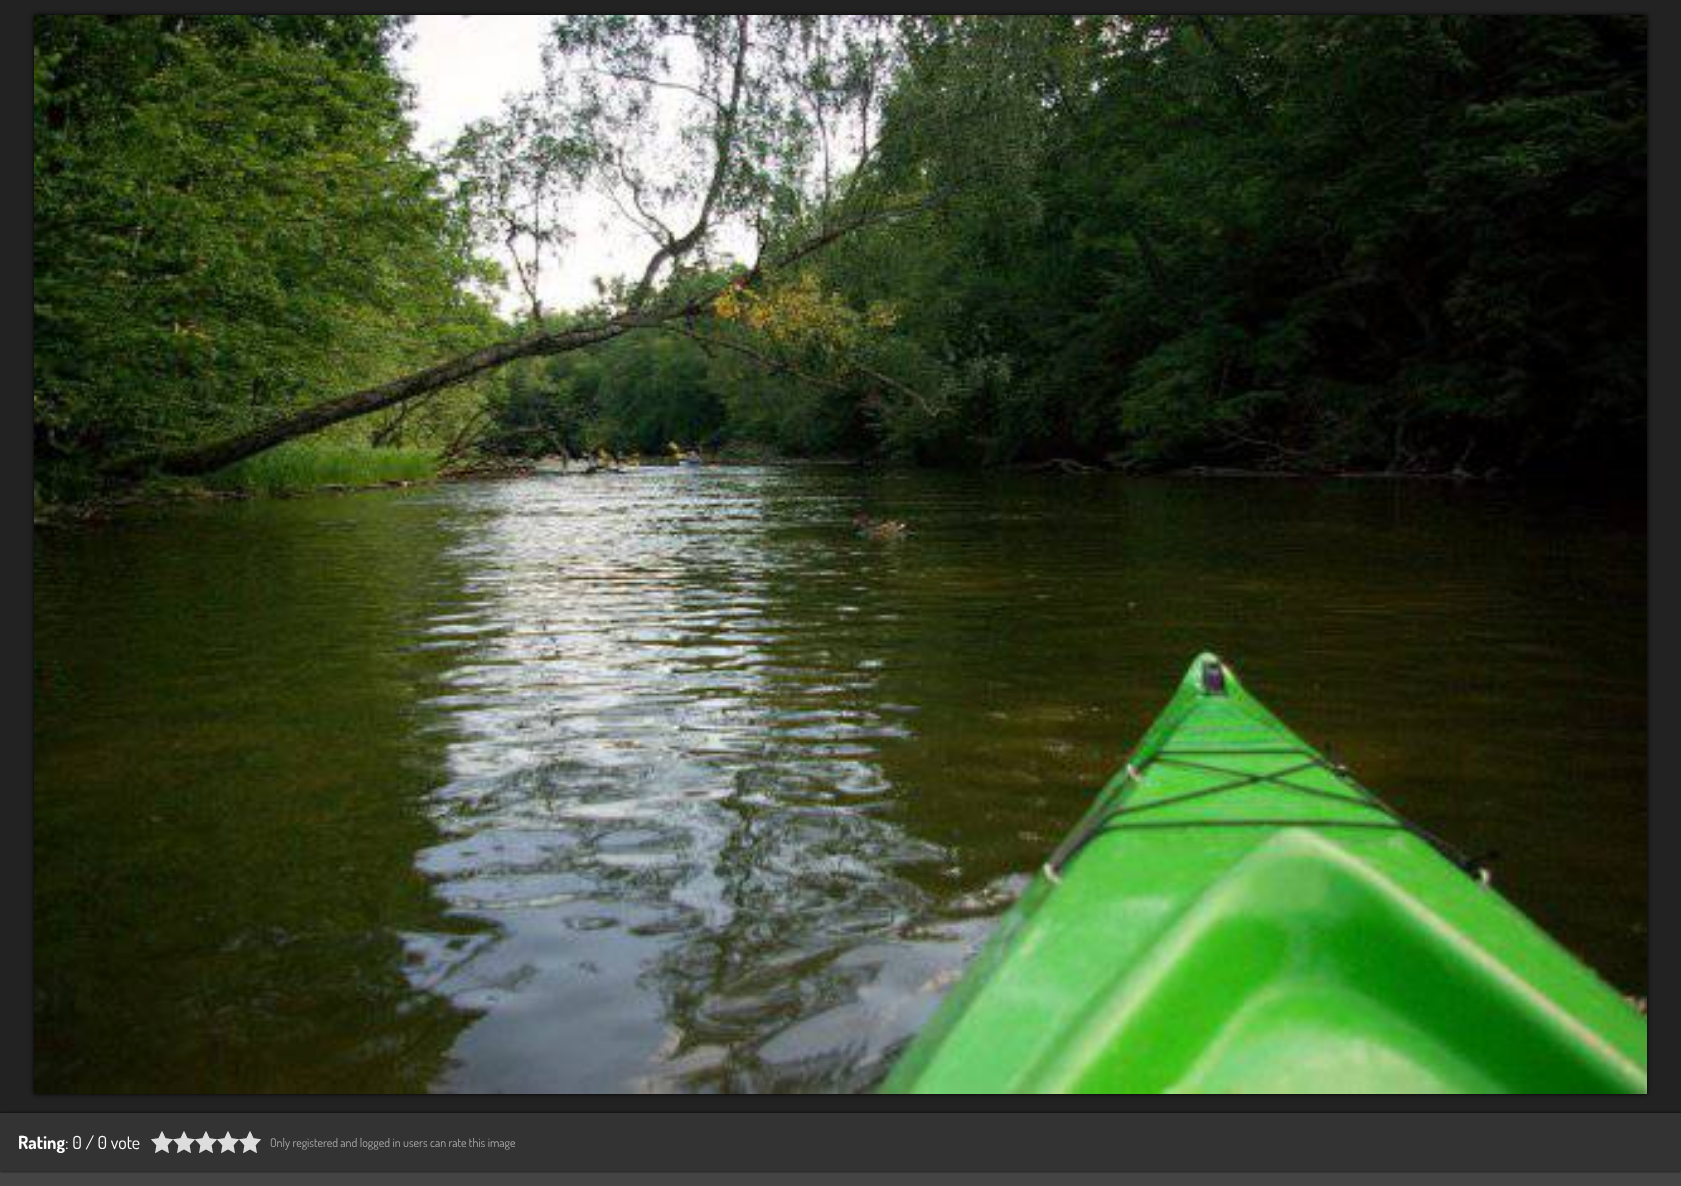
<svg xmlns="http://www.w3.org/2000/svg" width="1681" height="1186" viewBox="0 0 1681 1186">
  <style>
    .t1 { font: bold 18px Dosis; fill: #fff; }
    .t2 { font: 18px Dosis; fill: #fff; }
    .t3 { font: 12px Dosis; fill: #aaa; }
  </style>
  <rect width="100%" height="100%" fill="#222"/>
  <rect x="34" y="15" width="1613" height="1079" fill="#000" filter="blur(2.5px)"/>
  <image x="34" y="15" width="1613" height="1079" href="images/1.png"/>
  <rect x="0" y="1171" width="1681" height="15" fill="#444"/>
  <rect x="0" y="1113" width="1681" height="58" fill="#000" filter="blur(1.5px)"/>
  <rect x="0" y="1113" width="1681" height="58" fill="#333"/>
  <text x="18" y="1149" class="t1">Rating</text>
  <text x="65" y="1149" class="t2">: 0 / 0 vote</text>
  <image x="151" y="1131" width="110" height="22" href="images/2.png"/>
  <text x="270" y="1147" class="t3">Only registered and logged in users can rate this image</text>
</svg>
